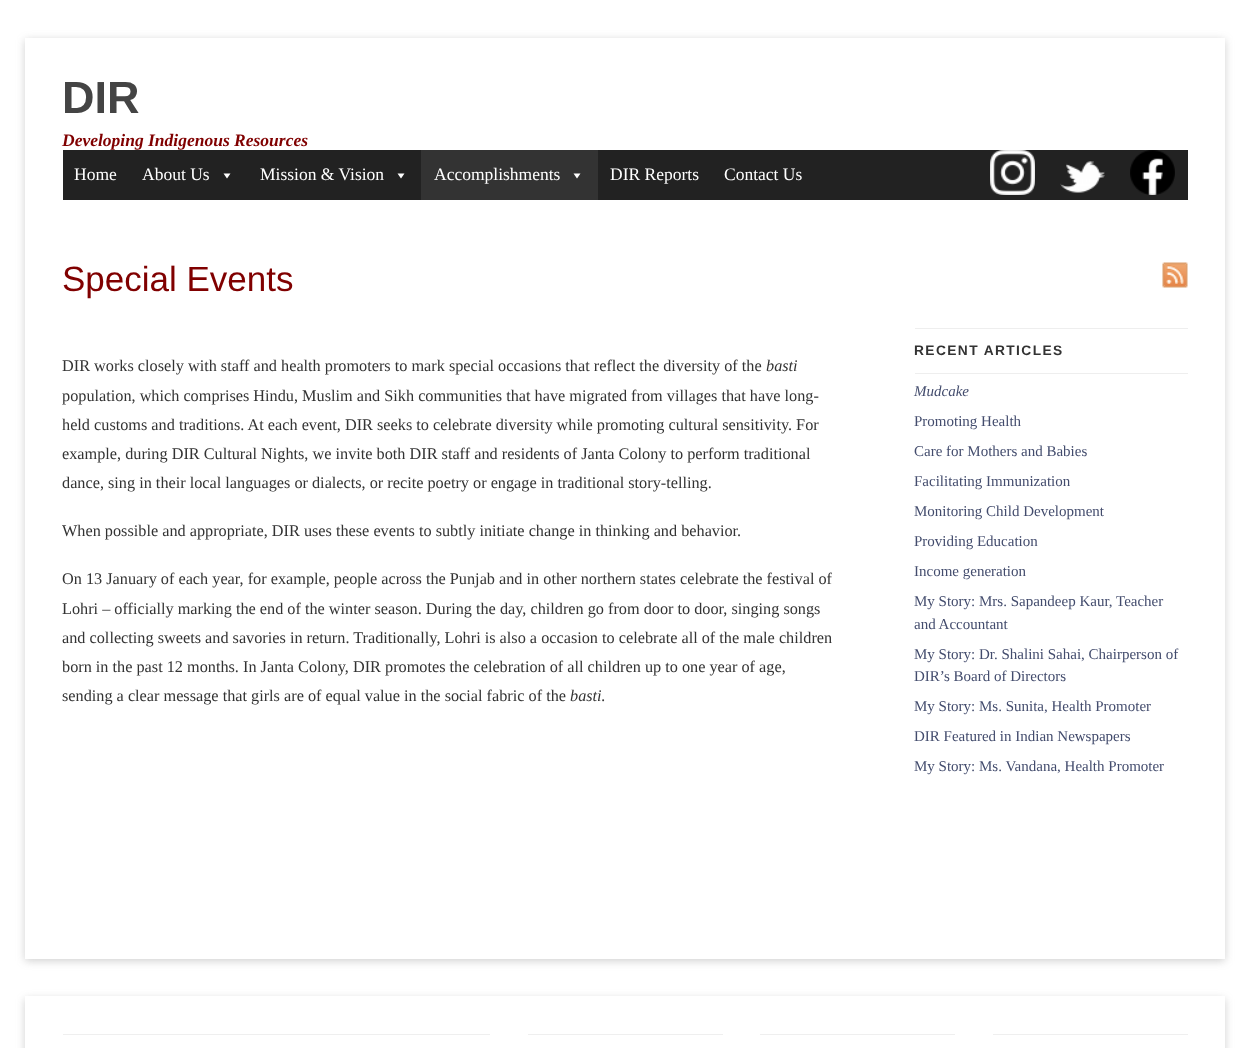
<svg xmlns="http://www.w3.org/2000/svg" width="1248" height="1048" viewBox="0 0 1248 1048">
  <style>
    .t1 { font: bold 45px Liberation Sans; fill: #444; }
    .t2 { font: italic bold 17.5px Liberation Serif; fill: #800000; }
    .t3 { font: 17.5px Liberation Serif; fill: #fff; }
    .t4 { font: 35px Liberation Sans; fill: #800000; }
    .t5 { font: 16.25px Liberation Serif; fill: #333; }
    .t6 { font: italic 16.25px Liberation Serif; fill: #333; }
    .t7 { font: bold 13.75px Liberation Sans; letter-spacing: 1.4px; fill: #333; }
    .t8 { font: italic 15px Liberation Serif; fill: #434c6d; }
    .t9 { font: 15px Liberation Serif; fill: #434c6d; }
  </style>
  <rect width="100%" height="100%" fill="#fff"/>
  <rect x="25" y="40" width="1200" height="921" fill="#6464644d" filter="blur(4px)"/>
  <rect x="25" y="38" width="1200" height="921" fill="#fff"/>
  <text x="62" y="113" class="t1">DIR</text>
  <text x="62" y="146" class="t2">Developing Indigenous Resources</text>
  <rect x="63" y="150" width="1125" height="50" fill="#222"/>
  <text x="74" y="180" class="t3">Home</text>
  <text x="142" y="180" class="t3">About Us</text>
  <path d="M230.5 173.5L227 178.5L223.5 173.5Z" fill="#fff"/>
  <text x="260" y="180" class="t3">Mission &amp; Vision</text>
  <path d="M404.5 173.5L401 178.5L397.5 173.5Z" fill="#fff"/>
  <rect x="421" y="150" width="177" height="50" fill="#333"/>
  <text x="434" y="180" class="t3">Accomplishments</text>
  <path d="M580.5 173.5L577 178.5L573.5 173.5Z" fill="#fff"/>
  <text x="610" y="180" class="t3">DIR Reports</text>
  <text x="724" y="180" class="t3">Contact Us</text>
  <image x="990" y="150" width="45" height="45" href="images/1.png"/>
  <image x="1060" y="161" width="45" height="32" href="images/2.png"/>
  <image x="1130" y="150" width="45" height="45" href="images/3.png"/>
  <text x="62" y="291" class="t4">Special Events</text>
  <text x="62" y="371" class="t5">DIR works closely with staff and health promoters to mark special occasions that reflect the diversity of the</text>
  <text x="766" y="371" class="t6">basti</text>
  <text x="62" y="401" class="t5">population, which comprises Hindu, Muslim and Sikh communities that have migrated from villages that have long-</text>
  <text x="62" y="430" class="t5">held customs and traditions. At each event, DIR seeks to celebrate diversity while promoting cultural sensitivity. For</text>
  <text x="62" y="459" class="t5">example, during DIR Cultural Nights, we invite both DIR staff and residents of Janta Colony to perform traditional</text>
  <text x="62" y="488" class="t5">dance, sing in their local languages or dialects, or recite poetry or engage in traditional story-telling.</text>
  <text x="62" y="536" class="t5">When possible and appropriate, DIR uses these events to subtly initiate change in thinking and behavior.</text>
  <text x="62" y="584" class="t5">On 13 January of each year, for example, people across the Punjab and in other northern states celebrate the festival of</text>
  <text x="62" y="614" class="t5">Lohri – officially marking the end of the winter season. During the day, children go from door to door, singing songs</text>
  <text x="62" y="643" class="t5">and collecting sweets and savories in return. Traditionally, Lohri is also a occasion to celebrate all of the male children</text>
  <text x="62" y="672" class="t5">born in the past 12 months. In Janta Colony, DIR promotes the celebration of all children up to one year of age,</text>
  <text x="62" y="701" class="t5">sending a clear message that girls are of equal value in the social fabric of the</text>
  <text x="570" y="701" class="t6">basti.</text>
  <image x="1162" y="262" width="26" height="26" href="images/4.png"/>
  <rect x="915" y="328" width="273" height="1" fill="#eee"/>
  <rect x="915" y="373" width="273" height="1" fill="#eee"/>
  <text x="914" y="355" class="t7">RECENT ARTICLES</text>
  <text x="914" y="396" class="t8">Mudcake</text>
  <text x="914" y="426" class="t9">Promoting Health</text>
  <text x="914" y="456" class="t9">Care for Mothers and Babies</text>
  <text x="914" y="486" class="t9">Facilitating Immunization</text>
  <text x="914" y="516" class="t9">Monitoring Child Development</text>
  <text x="914" y="546" class="t9">Providing Education</text>
  <text x="914" y="576" class="t9">Income generation</text>
  <text x="914" y="606" class="t9">My Story: Mrs. Sapandeep Kaur, Teacher</text>
  <text x="914" y="629" class="t9">and Accountant</text>
  <text x="914" y="659" class="t9">My Story: Dr. Shalini Sahai, Chairperson of</text>
  <text x="914" y="681" class="t9">DIR’s Board of Directors</text>
  <text x="914" y="711" class="t9">My Story: Ms. Sunita, Health Promoter</text>
  <text x="914" y="741" class="t9">DIR Featured in Indian Newspapers</text>
  <text x="914" y="771" class="t9">My Story: Ms. Vandana, Health Promoter</text>
  <rect x="25" y="999" width="1200" height="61" fill="#6464644d" filter="blur(4px)"/>
  <rect x="25" y="996" width="1200" height="52" fill="#fff"/>
  <rect x="63" y="1034" width="427" height="1" fill="#efefef"/>
  <rect x="528" y="1034" width="195" height="1" fill="#efefef"/>
  <rect x="760" y="1034" width="195" height="1" fill="#efefef"/>
  <rect x="993" y="1034" width="195" height="1" fill="#efefef"/>
</svg>
